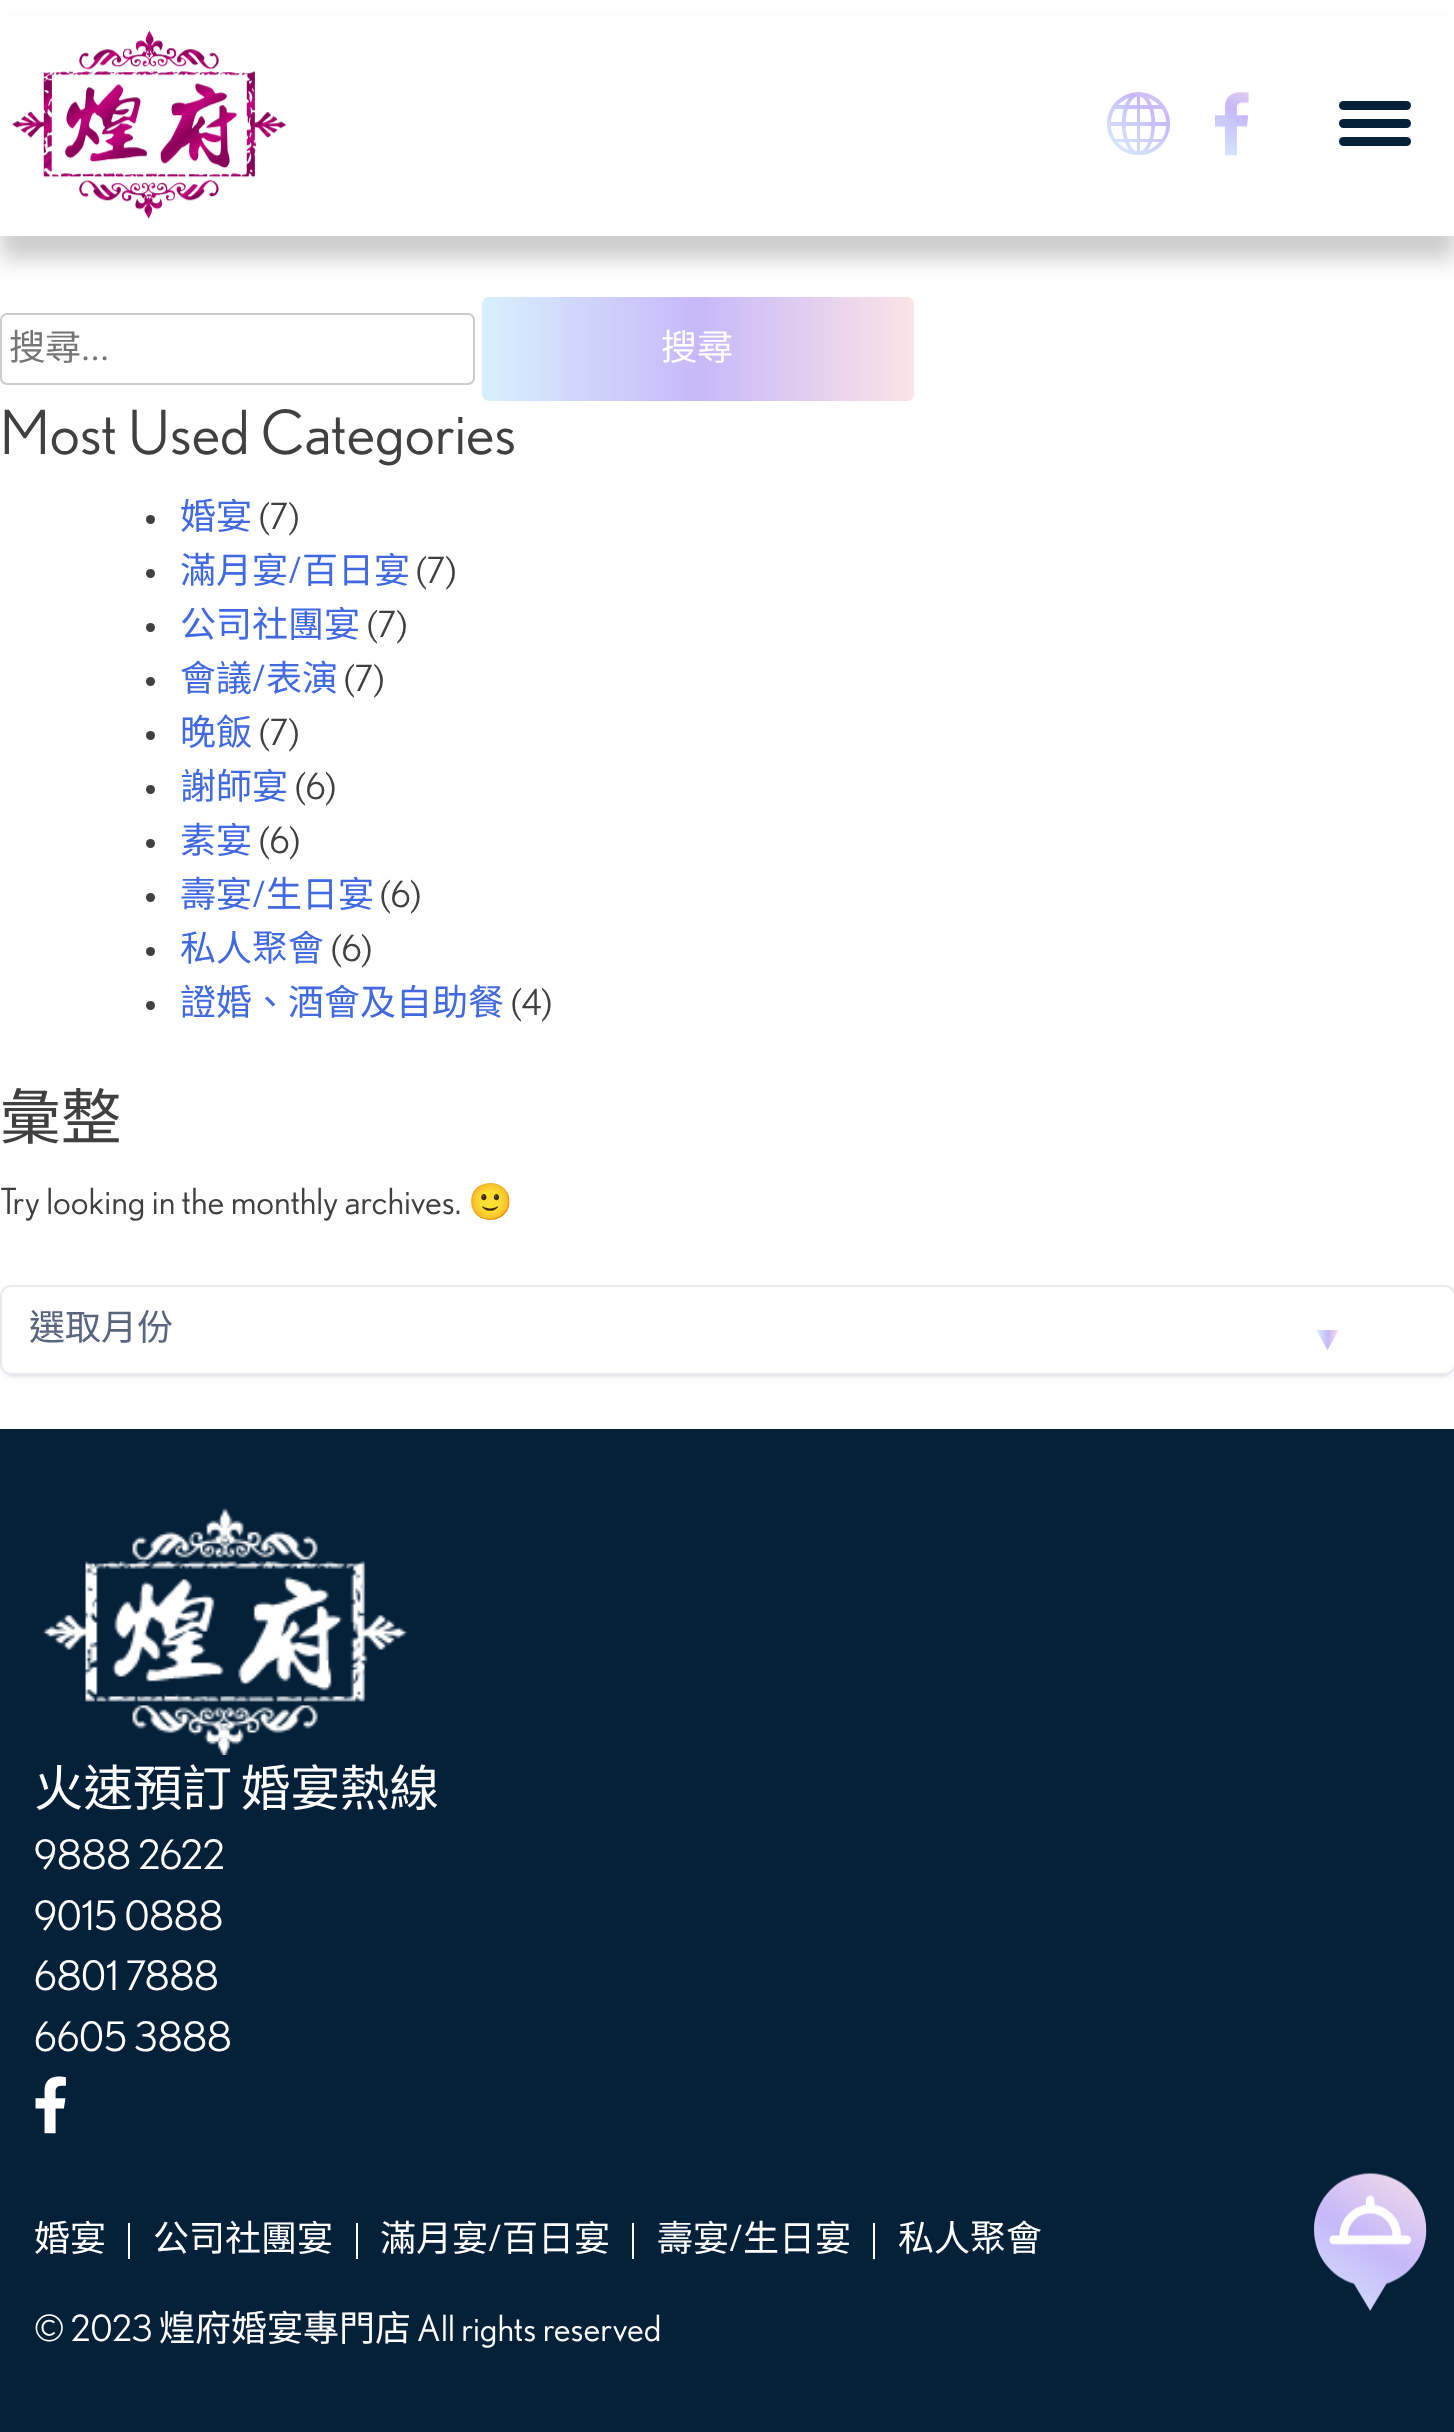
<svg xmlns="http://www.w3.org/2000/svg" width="1454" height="2432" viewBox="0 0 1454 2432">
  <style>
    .t1 { font: 36px Noto Sans CJK HK; fill: #757575; }
    .t2 { font: 36px Roboto; fill: #757575; }
    .t3 { font: 36px Noto Sans CJK HK; fill: #fff; }
    .t4 { font: 60.75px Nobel; fill: #404040; }
    .t5 { font: 36px Noto Sans CJK HK; fill: #4169e1; }
    .t6 { font: 36px Nobel; fill: #404040; }
    .t7 { font: 36px Nobel; fill: #4169e1; }
    .t8 { font: 60.75px Noto Sans CJK HK; fill: #404040; }
    .t9 { font: 36px Noto Color Emoji; fill: #404040; }
    .t10 { font: 36px Noto Sans CJK HK; fill: #5a667f; }
    .t11 { font: 49.5px Noto Sans CJK HK; fill: #fff; }
    .t12 { font: 40.5px Nobel; fill: #fff; }
    .t13 { font: 36px Nobel; fill: #fff; }
  </style>
  <defs>
    <linearGradient id="g1" gradientUnits="userSpaceOnUse" x1="482" y1="349" x2="914" y2="349"><stop offset="0" stop-color="#d8f0fd"/><stop offset="0.5" stop-color="#c7b8fa"/><stop offset="1" stop-color="#fce4e6"/></linearGradient>
  </defs>
  <rect width="100%" height="100%" fill="#fff"/>
  <rect x="0" y="34" width="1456" height="225" fill="#00000033" filter="blur(11px)"/>
  <rect x="0" y="16" width="1454" height="220" fill="#fff"/>
  <image x="12" y="30" width="274" height="189" href="images/1.png"/>
  <image x="1107" y="92" width="63" height="63" href="images/2.png"/>
  <image x="1215" y="92" width="34" height="64" href="images/3.png"/>
  <rect x="1339" y="101" width="72" height="9" rx="4.5" fill="#05213a"/>
  <rect x="1339" y="119" width="72" height="9" rx="4.5" fill="#05213a"/>
  <rect x="1339" y="137" width="72" height="9" rx="4.5" fill="#05213a"/>
  <rect x="1" y="314" width="473" height="70" rx="6" fill="none" stroke="#ccc" stroke-width="2"/>
  <text x="9" y="360" class="t1">搜尋</text>
  <text x="81" y="360" class="t2">...</text>
  <rect x="482" y="297" width="432" height="104" rx="7" fill="url(#g1)"/>
  <text x="661" y="360" class="t3">搜尋</text>
  <text x="0" y="454" class="t4">Most Used Categories</text>
  <circle cx="150.5" cy="519.5" r="4.5" fill="#404040"/>
  <text x="180" y="529" class="t5">婚宴</text>
  <text x="259" y="529" class="t6">(7)</text>
  <circle cx="150.5" cy="573.5" r="4.5" fill="#404040"/>
  <text x="180" y="583" class="t5">滿月宴</text>
  <text x="288" y="583" class="t7">/</text>
  <text x="302" y="583" class="t5">百日宴</text>
  <text x="416" y="583" class="t6">(7)</text>
  <circle cx="150.5" cy="627.5" r="4.5" fill="#404040"/>
  <text x="180" y="637" class="t5">公司社團宴</text>
  <text x="367" y="637" class="t6">(7)</text>
  <circle cx="150.5" cy="681.5" r="4.5" fill="#404040"/>
  <text x="180" y="691" class="t5">會議</text>
  <text x="252" y="691" class="t7">/</text>
  <text x="266" y="691" class="t5">表演</text>
  <text x="344" y="691" class="t6">(7)</text>
  <circle cx="150.5" cy="735.5" r="4.5" fill="#404040"/>
  <text x="180" y="745" class="t5">晚飯</text>
  <text x="259" y="745" class="t6">(7)</text>
  <circle cx="150.5" cy="789.5" r="4.5" fill="#404040"/>
  <text x="180" y="799" class="t5">謝師宴</text>
  <text x="295" y="799" class="t6">(6)</text>
  <circle cx="150.5" cy="843.5" r="4.5" fill="#404040"/>
  <text x="180" y="853" class="t5">素宴</text>
  <text x="259" y="853" class="t6">(6)</text>
  <circle cx="150.5" cy="897.5" r="4.5" fill="#404040"/>
  <text x="180" y="907" class="t5">壽宴</text>
  <text x="252" y="907" class="t7">/</text>
  <text x="266" y="907" class="t5">生日宴</text>
  <text x="380" y="907" class="t6">(6)</text>
  <circle cx="150.5" cy="951.5" r="4.5" fill="#404040"/>
  <text x="180" y="961" class="t5">私人聚會</text>
  <text x="331" y="961" class="t6">(6)</text>
  <circle cx="150.5" cy="1005.5" r="4.5" fill="#404040"/>
  <text x="180" y="1015" class="t5">證婚、酒會及自助餐</text>
  <text x="511" y="1015" class="t6">(4)</text>
  <text x="0" y="1139" class="t8">彙整</text>
  <text x="0" y="1214" class="t6">Try looking in the monthly archives.</text>
  <text x="468" y="1214" class="t9">🙂</text>
  <rect x="5" y="1292" width="1446" height="81" rx="7" fill="#9098a9" filter="blur(3.5px)"/>
  <rect x="0" y="1285" width="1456" height="90" rx="11" fill="#fff"/>
  <image x="1316" y="1330" width="23" height="20" href="images/4.png"/>
  <rect x="1" y="1286" width="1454" height="88" rx="10" fill="none" stroke="#e8eaed" stroke-width="2"/>
  <text x="29" y="1340" class="t10">選取月份</text>
  <rect x="0" y="1429" width="1454" height="1003" fill="#05213a"/>
  <image x="42" y="1507" width="366" height="248" href="images/5.png"/>
  <text x="34" y="1806" word-spacing="-2" class="t11">火速預訂 婚宴熱線</text>
  <text x="34" y="1869" class="t12">9888 2622</text>
  <text x="34" y="1930" class="t12">9015 0888</text>
  <text x="34" y="1990" class="t12">6801 7888</text>
  <text x="34" y="2051" class="t12">6605 3888</text>
  <image x="35" y="2076" width="31" height="58" href="images/6.png"/>
  <text x="34" y="2251" class="t3">婚宴</text>
  <text x="153" y="2251" class="t3">公司社團宴</text>
  <rect x="128" y="2223" width="2" height="36" fill="#fff"/>
  <text x="380" y="2251" class="t3">滿月宴</text>
  <rect x="356" y="2223" width="2" height="36" fill="#fff"/>
  <text x="488" y="2251" class="t13">/</text>
  <text x="502" y="2251" class="t3">百日宴</text>
  <text x="657" y="2251" class="t3">壽宴</text>
  <rect x="632" y="2223" width="2" height="36" fill="#fff"/>
  <text x="729" y="2251" class="t13">/</text>
  <text x="743" y="2251" class="t3">生日宴</text>
  <text x="898" y="2251" class="t3">私人聚會</text>
  <rect x="873" y="2223" width="2" height="36" fill="#fff"/>
  <text x="34" y="2341" class="t13">© 2023</text>
  <text x="159" y="2341" class="t3">煌府婚宴專門店</text>
  <text x="417" y="2341" class="t13">All rights reserved</text>
  <image x="1314" y="2173" width="113" height="138" href="images/7.png"/>
</svg>
